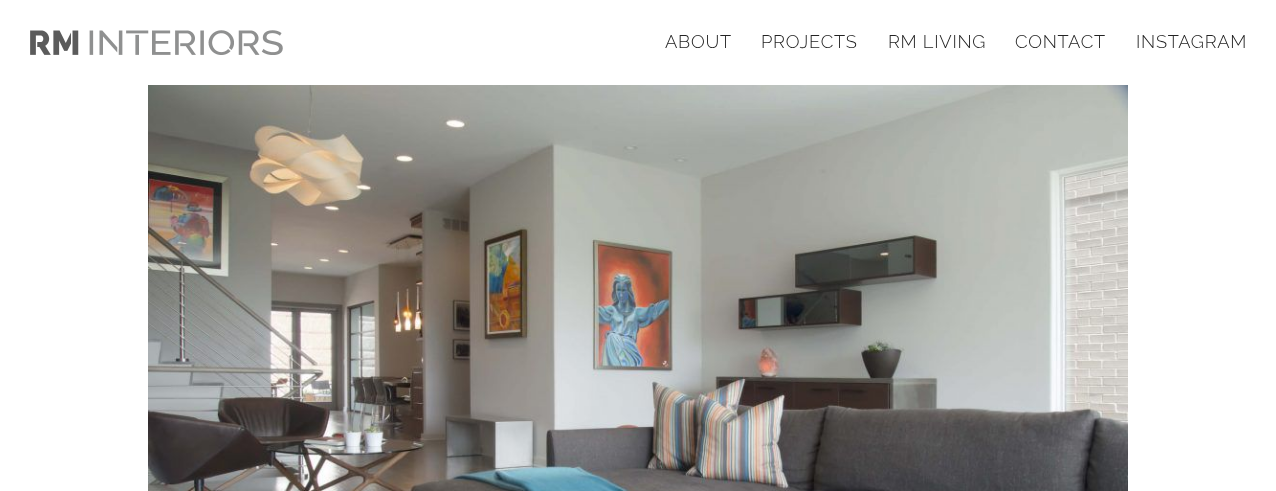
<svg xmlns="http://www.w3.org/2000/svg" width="1276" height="491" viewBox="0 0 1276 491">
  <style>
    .t1 { font: 300 18.25px Raleway; letter-spacing: 0.75px; fill: #232323; }
  </style>
  <rect width="100%" height="100%" fill="#fff"/>
  <image x="30" y="30" width="253" height="25" href="images/1.png"/>
  <text x="665" y="48" class="t1">ABOUT</text>
  <text x="761" y="48" class="t1">PROJECTS</text>
  <text x="888" y="48" class="t1">RM LIVING</text>
  <text x="1015" y="48" class="t1">CONTACT</text>
  <text x="1136" y="48" class="t1">INSTAGRAM</text>
  <image x="148" y="85" width="980" height="406" href="images/2.png"/>
</svg>
